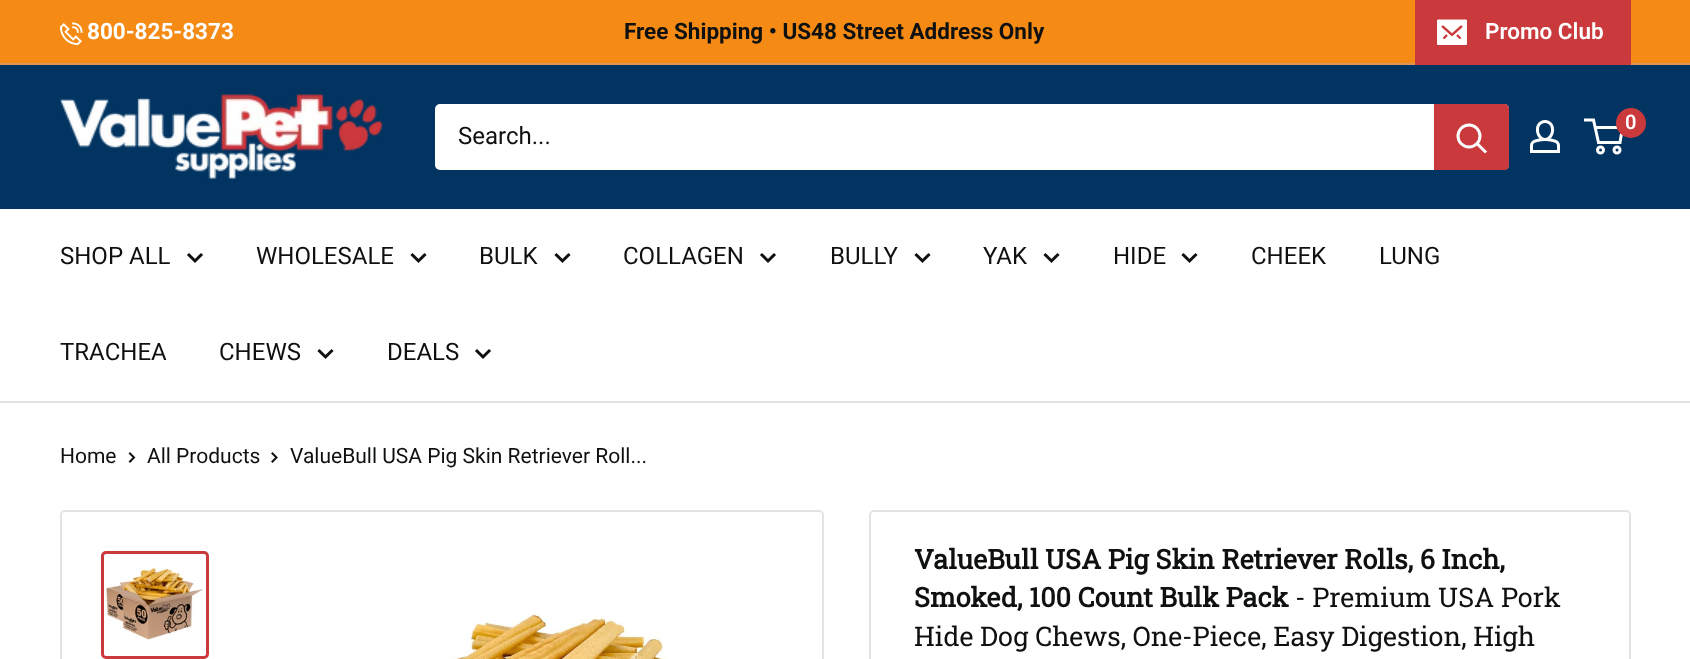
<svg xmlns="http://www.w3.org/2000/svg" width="1690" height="659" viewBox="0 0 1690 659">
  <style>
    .t1 { font: bold 22.5px Roboto; fill: #fff; }
    .t2 { font: bold 22.5px Roboto; fill: #0f1111; }
    .t3 { font: 600 22.5px Roboto; fill: #fff; }
    .t4 { font: 600 20px Roboto; fill: #fff; }
    .t5 { font: 24px Roboto; fill: #0f1111; }
    .t6 { font: 21px Roboto; fill: #0f1111; }
    .t7 { font: bold 27px Roboto Slab; fill: #0f1111; }
    .t8 { font: 27px Roboto Slab; fill: #0f1111; }
  </style>
  <rect width="100%" height="100%" fill="#fff"/>
  <rect x="0" y="0" width="1690" height="63" fill="#f58a15"/>
  <rect x="0" y="63" width="1690" height="2" fill="#dc9556"/>
  <image x="60" y="22" width="23" height="23" href="images/1.png"/>
  <text x="87" y="39" class="t1">800-825-8373</text>
  <text x="624" y="39" class="t2">Free Shipping • US48 Street Address Only</text>
  <path d="M1415 63V65H1631V2H1630V63Z" fill="#ca393c"/>
  <rect x="1415" y="0" width="216" height="63" fill="#ca393c"/>
  <image x="1437" y="19" width="30" height="26" href="images/2.png"/>
  <text x="1485" y="39" class="t3">Promo Club</text>
  <rect x="0" y="65" width="1690" height="144" fill="#013461"/>
  <image x="60" y="94" width="323" height="85" href="images/3.png"/>
  <image x="1530" y="120" width="30" height="33" href="images/4.png"/>
  <circle cx="1600.5" cy="150" r="3" fill="none" stroke="#fff" stroke-width="3"/>
  <circle cx="1617" cy="150" r="3" fill="none" stroke="#fff" stroke-width="3"/>
  <path d="M1595 127.5H1622.5L1620 142.5H1598.5L1593.5 120H1584" fill="none" stroke="#fff" stroke-width="3"/>
  <circle cx="1631" cy="123" r="15" fill="#ca393c"/>
  <text x="1625" y="129" class="t4">0</text>
  <rect x="435" y="104" width="1074" height="66" rx="5" fill="#fff"/>
  <text x="458" y="144" class="t5">Search...</text>
  <path d="M1434 104H1504C1507 104 1509 106 1509 109V165C1509 168 1507 170 1504 170H1434Z" fill="#ca393c"/>
  <path d="M1485 151.5L1477.5 144" fill="none" stroke="#fff" stroke-width="3" stroke-linecap="square"/>
  <circle cx="1469" cy="136" r="11" fill="none" stroke="#fff" stroke-width="3"/>
  <rect x="0" y="401" width="1690" height="2" fill="#e1e3e4"/>
  <text x="60" y="264" class="t5">SHOP ALL</text>
  <path d="M201 255L195 261L189 255" fill="none" stroke="#0f1111" stroke-width="3" stroke-linecap="square"/>
  <text x="256" y="264" class="t5">WHOLESALE</text>
  <path d="M424.5 255L418.5 261L412.5 255" fill="none" stroke="#0f1111" stroke-width="3" stroke-linecap="square"/>
  <text x="479" y="264" class="t5">BULK</text>
  <path d="M568.5 255L562.5 261L556.5 255" fill="none" stroke="#0f1111" stroke-width="3" stroke-linecap="square"/>
  <text x="623" y="264" class="t5">COLLAGEN</text>
  <path d="M774 255L768 261L762 255" fill="none" stroke="#0f1111" stroke-width="3" stroke-linecap="square"/>
  <text x="830" y="264" class="t5">BULLY</text>
  <path d="M928.5 255L922.5 261L916.5 255" fill="none" stroke="#0f1111" stroke-width="3" stroke-linecap="square"/>
  <text x="983" y="264" class="t5">YAK</text>
  <path d="M1057.5 255L1051.5 261L1045.5 255" fill="none" stroke="#0f1111" stroke-width="3" stroke-linecap="square"/>
  <text x="1113" y="264" class="t5">HIDE</text>
  <path d="M1195.5 255L1189.5 261L1183.5 255" fill="none" stroke="#0f1111" stroke-width="3" stroke-linecap="square"/>
  <text x="1251" y="264" class="t5">CHEEK</text>
  <text x="1379" y="264" class="t5">LUNG</text>
  <text x="60" y="360" class="t5">TRACHEA</text>
  <text x="219" y="360" class="t5">CHEWS</text>
  <path d="M331.5 351L325.5 357L319.5 351" fill="none" stroke="#0f1111" stroke-width="3" stroke-linecap="square"/>
  <text x="387" y="360" class="t5">DEALS</text>
  <path d="M489 351L483 357L477 351" fill="none" stroke="#0f1111" stroke-width="3" stroke-linecap="square"/>
  <text x="60" y="463" class="t6">Home</text>
  <path d="M130 453.5L134 457.5L130 461.5" fill="none" stroke="#0f1111" stroke-width="2" stroke-linecap="square"/>
  <text x="147" y="463" class="t6">All Products</text>
  <path d="M272.5 453.5L276.5 457.5L272.5 461.5" fill="none" stroke="#0f1111" stroke-width="2" stroke-linecap="square"/>
  <text x="290" y="463" class="t6">ValueBull USA Pig Skin Retriever Roll...</text>
  <rect x="61" y="511" width="762" height="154" rx="4" fill="none" stroke="#e1e3e4" stroke-width="2"/>
  <rect x="102.5" y="552.5" width="105" height="105" rx="3.5" fill="none" stroke="#ca393c" stroke-width="3"/>
  <image x="106" y="567" width="97" height="73" href="images/5.png"/>
  <image x="447" y="613" width="220" height="46" href="images/6.png"/>
  <rect x="870" y="511" width="760" height="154" rx="4" fill="none" stroke="#e1e3e4" stroke-width="2"/>
  <text x="914" y="569" class="t7">ValueBull USA Pig Skin Retriever Rolls, 6 Inch,</text>
  <text x="914" y="607" class="t7">Smoked, 100 Count Bulk Pack</text>
  <text x="1295" y="607" class="t8">- Premium USA Pork</text>
  <text x="914" y="646" class="t8">Hide Dog Chews, One-Piece, Easy Digestion, High</text>
</svg>
